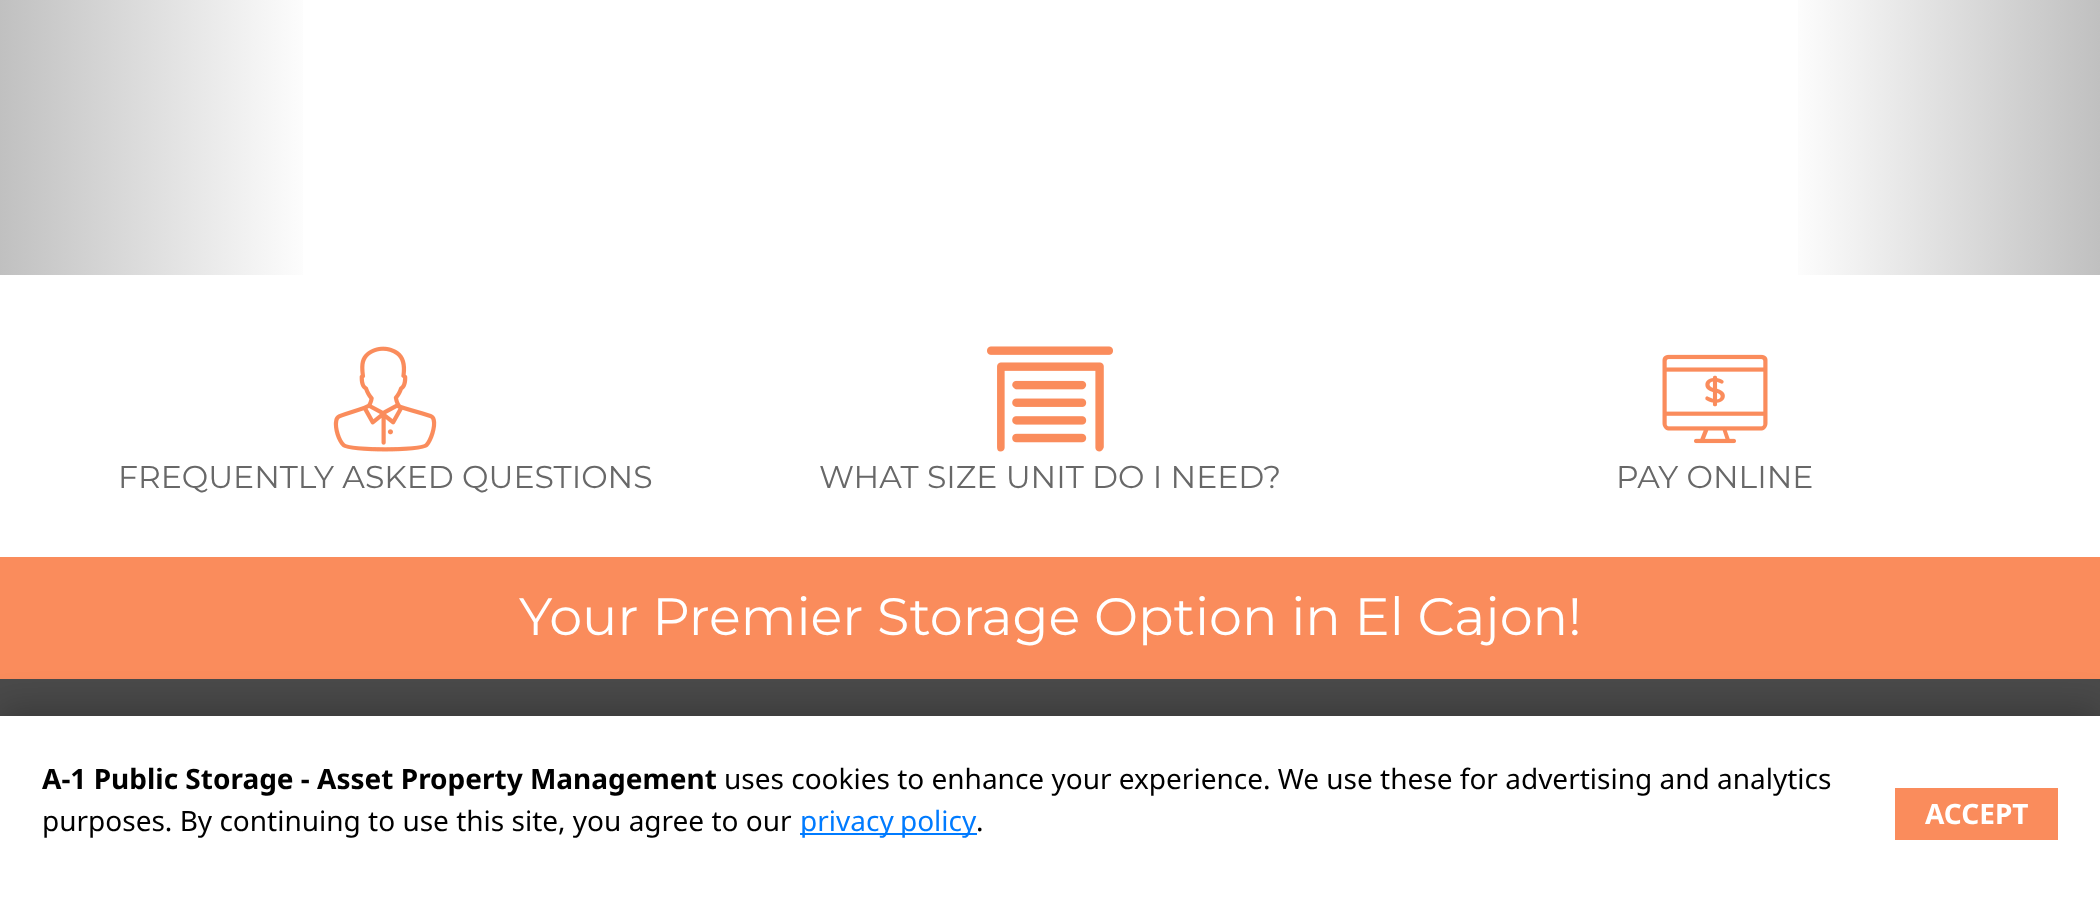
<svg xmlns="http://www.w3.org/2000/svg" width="2100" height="911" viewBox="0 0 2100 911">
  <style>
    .t1 { font: 31.5px Montserrat; fill: #686868; }
    .t2 { font: 52.5px Montserrat; fill: #fff; }
    .t3 { font: bold 28px Noto Sans; fill: #000; }
    .t4 { font: 28px Noto Sans; fill: #000; }
    .t5 { font: 28px Noto Sans; fill: #007bff; }
    .t6 { font: bold 28px Noto Sans; fill: #fff; }
  </style>
  <defs>
    <linearGradient id="g1" gradientUnits="userSpaceOnUse" x1="0" y1="-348" x2="315" y2="-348"><stop offset="0" stop-color="#c0c0c0"/><stop offset="1" stop-color="#fff"/></linearGradient>
    <linearGradient id="g2" gradientUnits="userSpaceOnUse" x1="1785" y1="-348" x2="2100" y2="-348"><stop offset="0" stop-color="#fff"/><stop offset="1" stop-color="#c0c0c0"/></linearGradient>
  </defs>
  <rect width="100%" height="100%" fill="#fff"/>
  <rect x="0" y="0" width="303" height="275" fill="url(#g1)"/>
  <rect x="1798" y="0" width="302" height="275" fill="url(#g2)"/>
  <image x="333" y="346" width="104" height="106" href="images/1.png"/>
  <text x="118" y="488" class="t1">FREQUENTLY ASKED QUESTIONS</text>
  <image x="987" y="346" width="126" height="106" href="images/2.png"/>
  <text x="819" y="488" class="t1">WHAT SIZE UNIT DO I NEED?</text>
  <image x="1662" y="354" width="106" height="90" href="images/3.png"/>
  <text x="1616" y="488" class="t1">PAY ONLINE</text>
  <rect x="0" y="557" width="2100" height="122" fill="#fa8c5c"/>
  <text x="519" y="635" class="t2">Your Premier Storage Option in El Cajon!</text>
  <rect x="0" y="679" width="2100" height="37" fill="#4a4a4a"/>
  <rect x="0" y="709" width="2100" height="196" fill="#00000040" filter="blur(17.5px)"/>
  <rect x="0" y="716" width="2100" height="195" fill="#fff"/>
  <text x="42" y="789" class="t3">A-1 Public Storage - Asset Property Management</text>
  <text x="724" y="789" class="t4">uses cookies to enhance your experience. We use these for advertising and analytics</text>
  <text x="42" y="831" class="t4">purposes. By continuing to use this site, you agree to our</text>
  <rect x="800" y="833" width="177" height="2" fill="#007bff"/>
  <text x="800" y="831" word-spacing="-1" class="t5">privacy policy</text>
  <text x="976" y="831" class="t4">.</text>
  <rect x="1895" y="788" width="163" height="52" fill="#fa8c5c"/>
  <text x="1925" y="824" class="t6">ACCEPT</text>
</svg>
